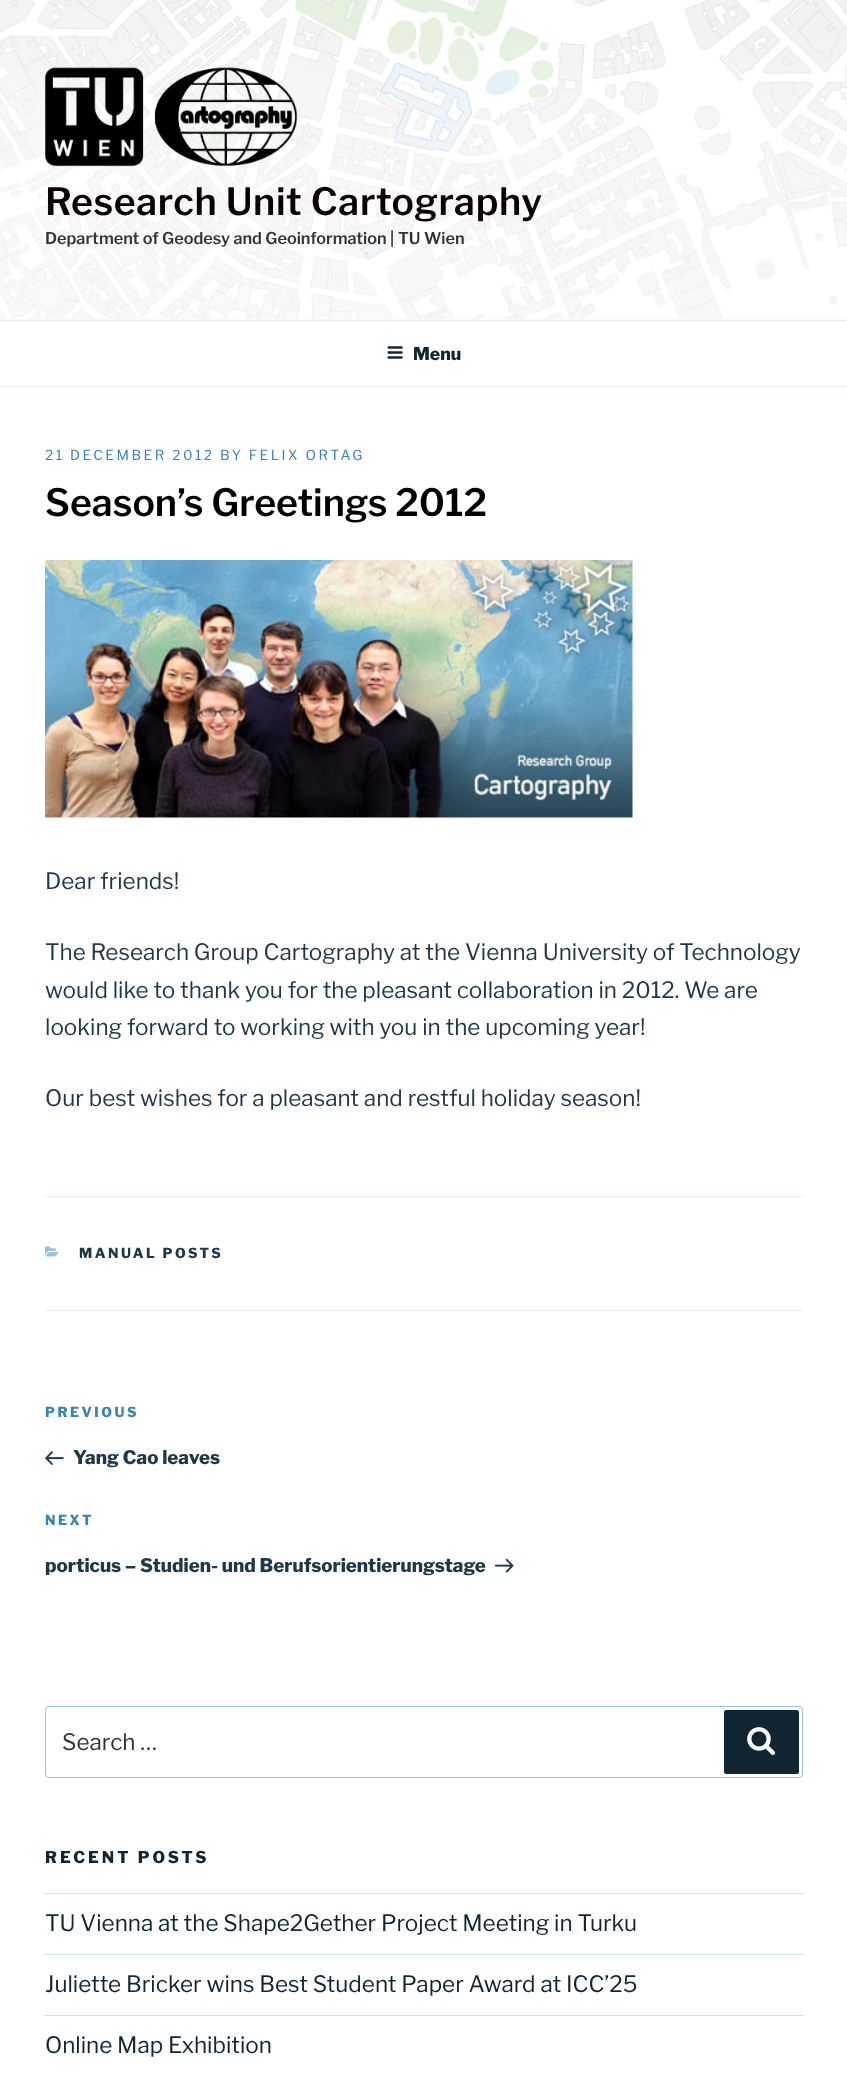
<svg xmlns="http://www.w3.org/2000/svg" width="847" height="2076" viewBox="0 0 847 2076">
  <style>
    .t1 { font: 100 37.5px 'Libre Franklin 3'; letter-spacing: 0.6px; fill: #0a0000; }
    .t2 { font: 100 16.25px 'Libre Franklin 3'; fill: #333; }
    .t3 { font: 100 16.25px 'Libre Franklin 3'; fill: #393131; }
    .t4 { font: 100 17.5px Libre Franklin; fill: #112532; }
    .t5 { font: 100 13.75px 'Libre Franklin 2'; letter-spacing: 2.5px; fill: #3b83b0; }
    .t6 { font: 100 37.5px 'Libre Franklin 3'; fill: #000; }
    .t7 { font: 100 22.5px 'Libre Franklin 2'; fill: #1f3847; }
    .t8 { font: 100 13.75px Libre Franklin; letter-spacing: 2.5px; fill: #1f3847; }
    .t9 { font: 100 13.75px Libre Franklin; letter-spacing: 2.5px; fill: #3b83b0; }
    .t10 { font: 100 18.75px Libre Franklin; fill: #1f3847; }
    .t11 { font: 100 22.5px 'Libre Franklin 2'; fill: #333; }
    .t12 { font: 100 16.25px Libre Franklin; letter-spacing: 3px; fill: #112532; }
    .t13 { font: 100 22.5px 'Libre Franklin 2'; fill: #112532; }
  </style>
  <defs>
    <linearGradient id="g1" gradientUnits="userSpaceOnUse" x1="424" y1="0" x2="424" y2="320"><stop offset="0" stop-color="#fff" stop-opacity="0"/><stop offset="0.5" stop-color="#fff" stop-opacity="0.3"/><stop offset="1" stop-color="#fff" stop-opacity="0.3"/></linearGradient>
  </defs>
  <rect width="100%" height="100%" fill="#fff"/>
  <rect x="0" y="318" width="847" height="2" fill="#f7fafc"/>
  <image x="0" y="0" width="847" height="319" href="images/1.png"/>
  <rect x="0" y="39" width="847" height="280" fill="url(#g1)"/>
  <image x="45" y="67" width="253" height="100" href="images/2.png"/>
  <text x="45" y="215" class="t1">Research Unit Cartography</text>
  <text x="45" y="244" class="t2">Department of Geodesy and Geoinformation</text>
  <text x="390" y="244" class="t3">|</text>
  <text x="398" y="244" class="t2">TU Wien</text>
  <rect x="0" y="320" width="847" height="1" fill="#e4eff6"/>
  <rect x="0" y="386" width="847" height="1" fill="#e4eff6"/>
  <image x="387" y="346" width="16" height="13" href="images/3.png"/>
  <text x="413" y="360" class="t4">Menu</text>
  <text x="45" y="460" class="t5">21 DECEMBER 2012 BY FELIX ORTAG</text>
  <text x="45" y="516" class="t6">Season’s Greetings 2012</text>
  <image x="45" y="560" width="588" height="258" href="images/4.png"/>
  <text x="45" y="889" class="t7">Dear friends!</text>
  <text x="45" y="960" class="t7">The Research Group Cartography at the Vienna University of Technology</text>
  <text x="45" y="998" class="t7">would like to thank you for the pleasant collaboration in 2012. We are</text>
  <text x="45" y="1035" class="t7">looking forward to working with you in the upcoming year!</text>
  <text x="45" y="1106" class="t7">Our best wishes for a pleasant and restful holiday season!</text>
  <rect x="45" y="1196" width="758" height="1" fill="#e4eff6"/>
  <rect x="45" y="1310" width="758" height="1" fill="#e4eff6"/>
  <image x="45" y="1246" width="14" height="11" href="images/5.png"/>
  <text x="79" y="1258" class="t8">MANUAL POSTS</text>
  <text x="45" y="1417" class="t9">PREVIOUS</text>
  <image x="45" y="1451" width="19" height="14" href="images/6.png"/>
  <text x="73" y="1464" class="t10">Yang Cao leaves</text>
  <text x="45" y="1525" class="t9">NEXT</text>
  <text x="45" y="1572" class="t10">porticus – Studien- und Berufsorientierungstage</text>
  <image x="495" y="1558" width="19" height="15" href="images/7.png"/>
  <rect x="45.5" y="1706.5" width="757" height="71" rx="3.5" fill="none" stroke="#98c2dd"/>
  <text x="62" y="1750" class="t11">Search …</text>
  <rect x="724" y="1710" width="75" height="64" rx="2.5" fill="#112532"/>
  <image x="747" y="1727" width="28" height="28" href="images/8.png"/>
  <text x="45" y="1863" class="t12">RECENT POSTS</text>
  <rect x="45" y="1893" width="758" height="1" fill="#cde2ee"/>
  <rect x="45" y="1954" width="758" height="1" fill="#cde2ee"/>
  <text x="45" y="1931" class="t13">TU Vienna at the Shape2Gether Project Meeting in Turku</text>
  <rect x="45" y="2015" width="758" height="1" fill="#cde2ee"/>
  <text x="45" y="1992" class="t13">Juliette Bricker wins Best Student Paper Award at ICC’25</text>
  <text x="45" y="2053" class="t13">Online Map Exhibition</text>
</svg>
